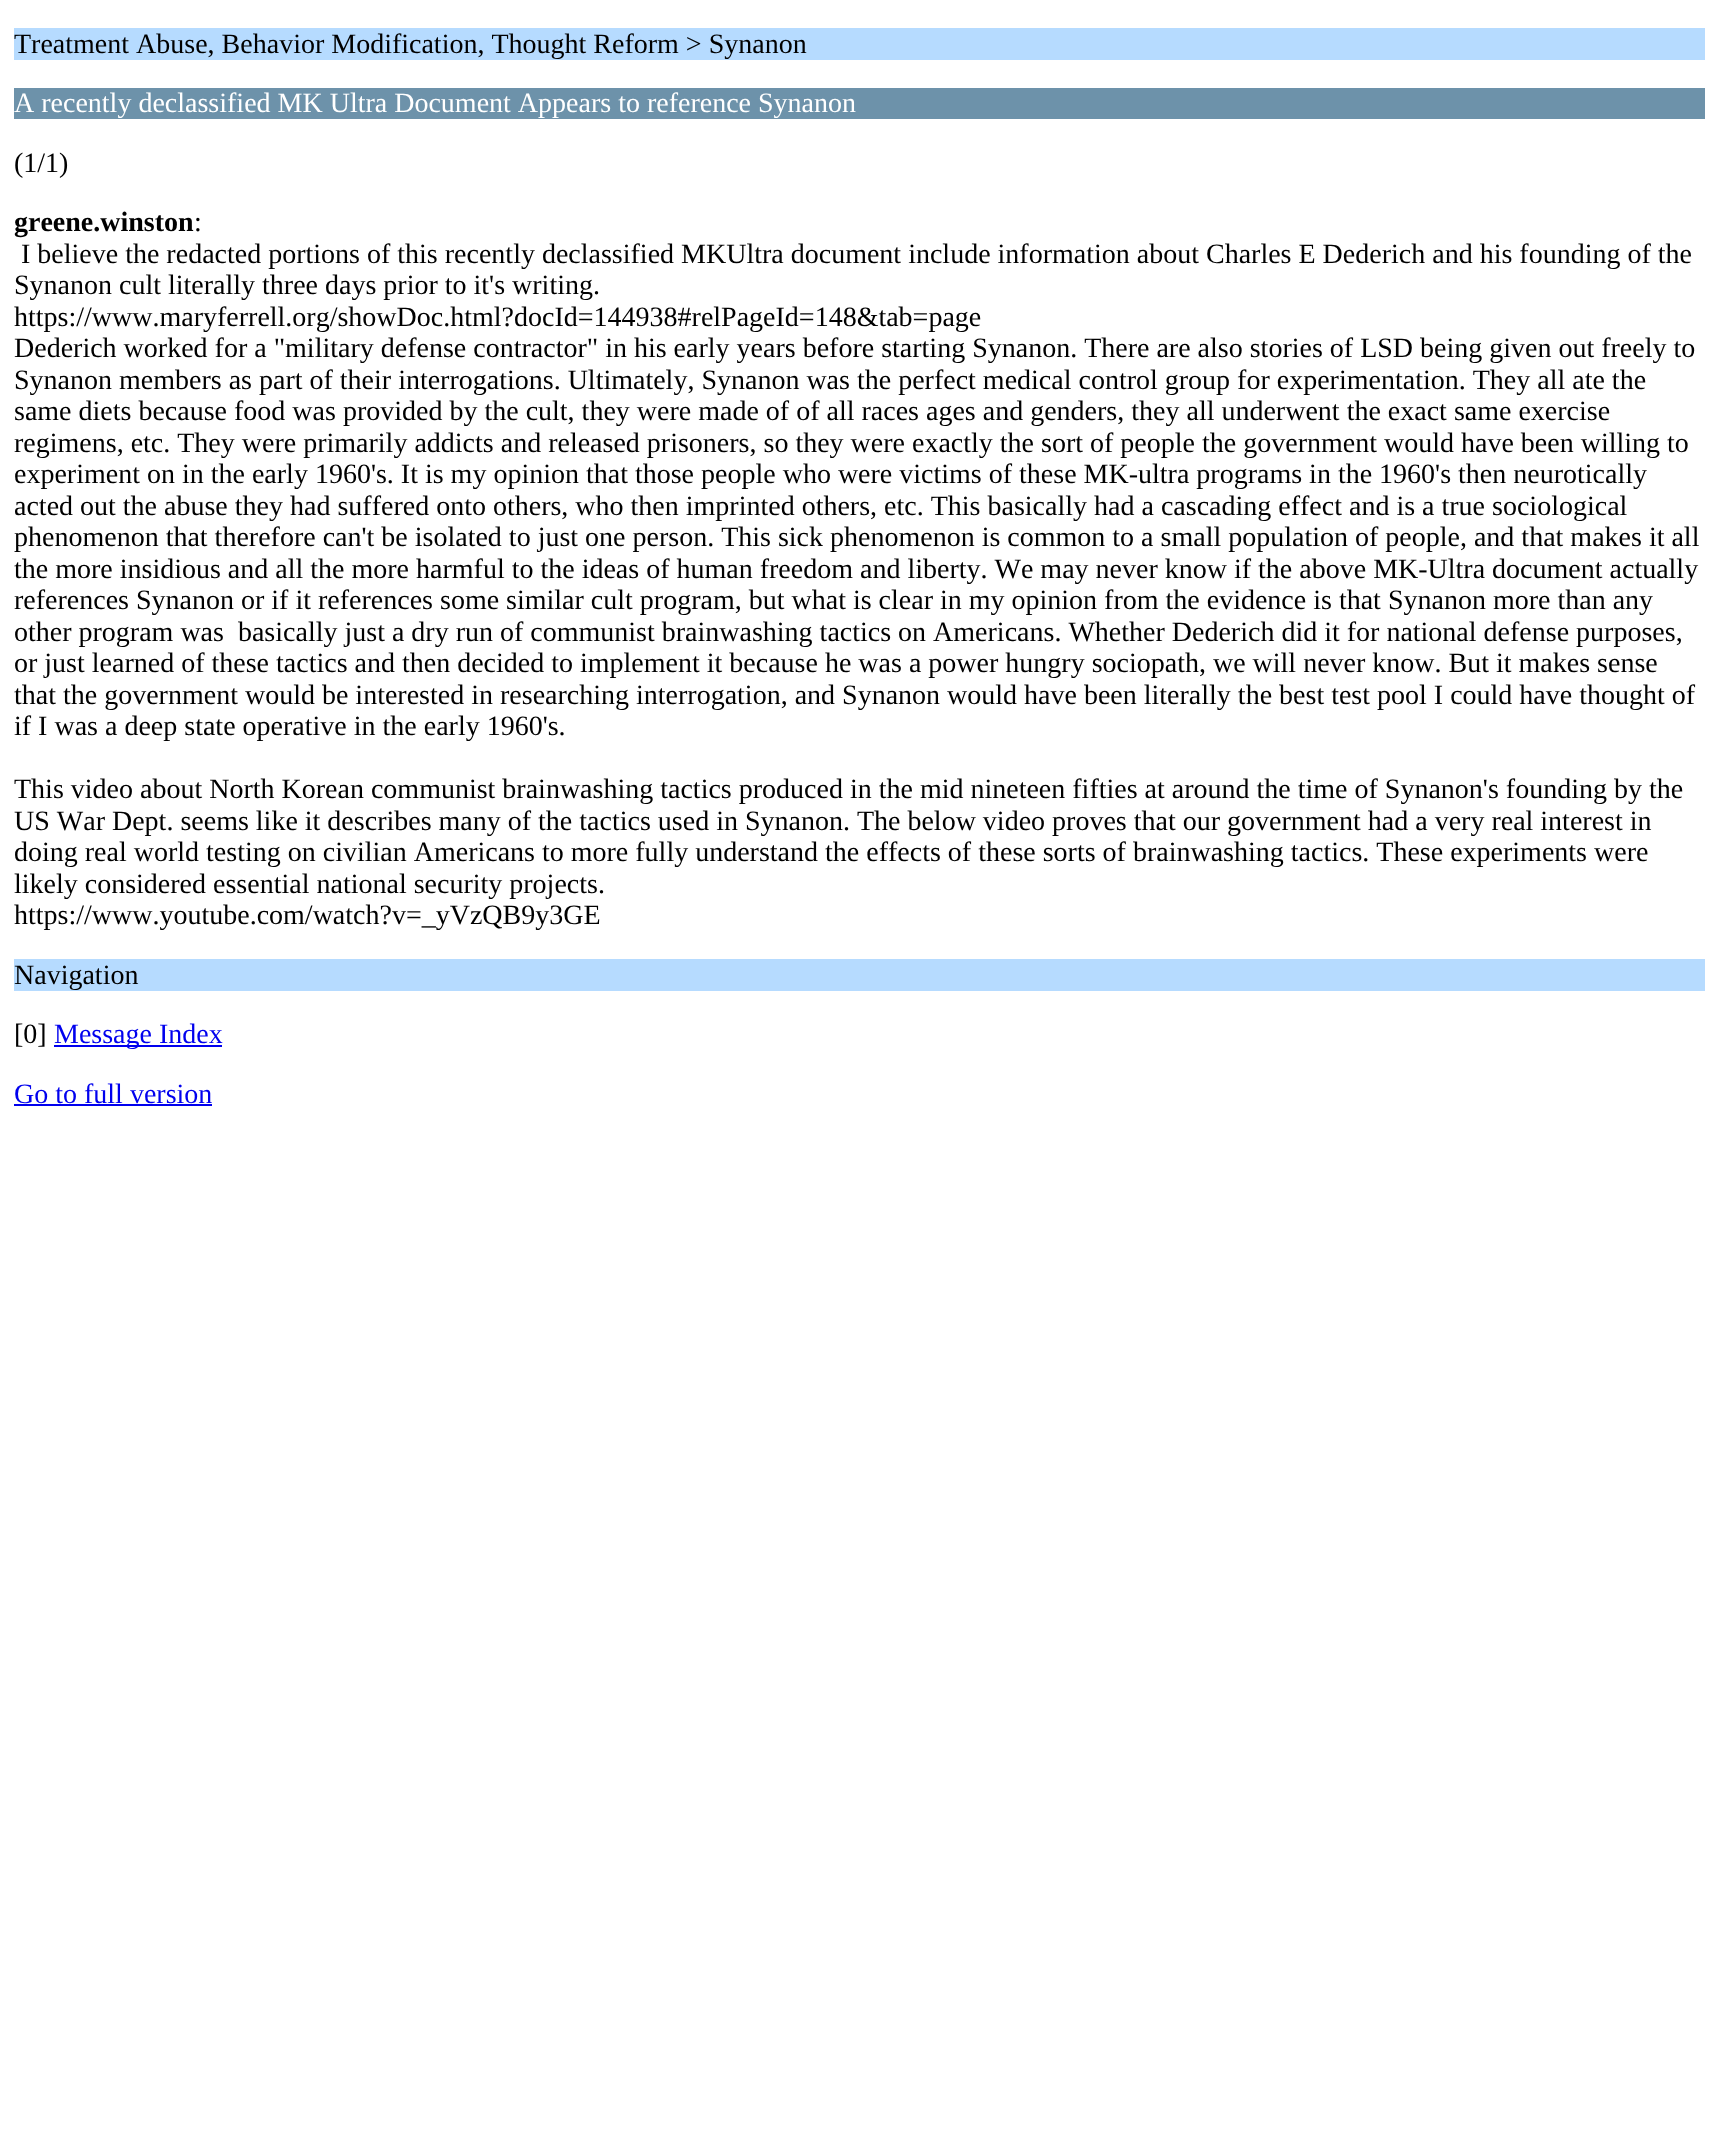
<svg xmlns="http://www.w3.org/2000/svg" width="1717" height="2133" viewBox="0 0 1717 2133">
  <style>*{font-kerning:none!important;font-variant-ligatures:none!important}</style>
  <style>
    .t1 { font: 28px Liberation Serif; fill: #000; }
    .t2 { font: 28px Liberation Serif; fill: #fff; }
    .t3 { font: bold 28px Liberation Serif; fill: #000; }
    .t4 { font: 28px Liberation Serif; fill: #00e; }
  </style>
  <rect width="100%" height="100%" fill="#fff"/>
  <rect x="14" y="28" width="1691" height="32" fill="#b6dbff"/>
  <text x="14" y="53" class="t1">Treatment Abuse, Behavior Modification, Thought Reform &gt; Synanon</text>
  <rect x="14" y="88" width="1691" height="31" fill="#6d92aa"/>
  <text x="14" y="112" class="t2">A recently declassified MK Ultra Document Appears to reference Synanon</text>
  <text x="14" y="172" class="t1">(1/1)</text>
  <text x="14" y="231" class="t3">greene.winston</text>
  <text x="194" y="231" class="t1">:</text>
  <text x="21" y="263" class="t1">I believe the redacted portions of this recently declassified MKUltra document include information about Charles E Dederich and his founding of the</text>
  <text x="14" y="294" class="t1">Synanon cult literally three days prior to it's writing.</text>
  <text x="14" y="326" class="t1">https://www.maryferrell.org/showDoc.html?docId=144938#relPageId=148&amp;tab=page</text>
  <text x="14" y="357" class="t1">Dederich worked for a "military defense contractor" in his early years before starting Synanon. There are also stories of LSD being given out freely to</text>
  <text x="14" y="389" class="t1">Synanon members as part of their interrogations. Ultimately, Synanon was the perfect medical control group for experimentation. They all ate the</text>
  <text x="14" y="420" class="t1">same diets because food was provided by the cult, they were made of of all races ages and genders, they all underwent the exact same exercise</text>
  <text x="14" y="452" class="t1">regimens, etc. They were primarily addicts and released prisoners, so they were exactly the sort of people the government would have been willing to</text>
  <text x="14" y="483" class="t1">experiment on in the early 1960's. It is my opinion that those people who were victims of these MK-ultra programs in the 1960's then neurotically</text>
  <text x="14" y="515" class="t1">acted out the abuse they had suffered onto others, who then imprinted others, etc. This basically had a cascading effect and is a true sociological</text>
  <text x="14" y="546" class="t1">phenomenon that therefore can't be isolated to just one person. This sick phenomenon is common to a small population of people, and that makes it all</text>
  <text x="14" y="578" class="t1">the more insidious and all the more harmful to the ideas of human freedom and liberty. We may never know if the above MK-Ultra document actually</text>
  <text x="14" y="609" class="t1">references Synanon or if it references some similar cult program, but what is clear in my opinion from the evidence is that Synanon more than any</text>
  <text x="14" y="641" class="t1" xml:space="preserve">other program was  basically just a dry run of communist brainwashing tactics on Americans. Whether Dederich did it for national defense purposes,</text>
  <text x="14" y="672" class="t1">or just learned of these tactics and then decided to implement it because he was a power hungry sociopath, we will never know. But it makes sense</text>
  <text x="14" y="704" class="t1">that the government would be interested in researching interrogation, and Synanon would have been literally the best test pool I could have thought of</text>
  <text x="14" y="735" class="t1">if I was a deep state operative in the early 1960's.</text>
  <text x="14" y="798" class="t1">This video about North Korean communist brainwashing tactics produced in the mid nineteen fifties at around the time of Synanon's founding by the</text>
  <text x="14" y="830" class="t1">US War Dept. seems like it describes many of the tactics used in Synanon. The below video proves that our government had a very real interest in</text>
  <text x="14" y="861" class="t1">doing real world testing on civilian Americans to more fully understand the effects of these sorts of brainwashing tactics. These experiments were</text>
  <text x="14" y="893" class="t1">likely considered essential national security projects.</text>
  <text x="14" y="924" class="t1">https://www.youtube.com/watch?v=_yVzQB9y3GE</text>
  <rect x="14" y="959" width="1691" height="32" fill="#b6dbff"/>
  <text x="14" y="984" class="t1">Navigation</text>
  <text x="14" y="1043" class="t1">[0]</text>
  <rect x="54" y="1045" width="168" height="2" fill="#00e"/>
  <text x="54" y="1043" class="t4">Message Index</text>
  <text x="14" y="1103" class="t4">Go to full version</text>
  <rect x="14" y="1104" width="198" height="2" fill="#00e"/>
</svg>
